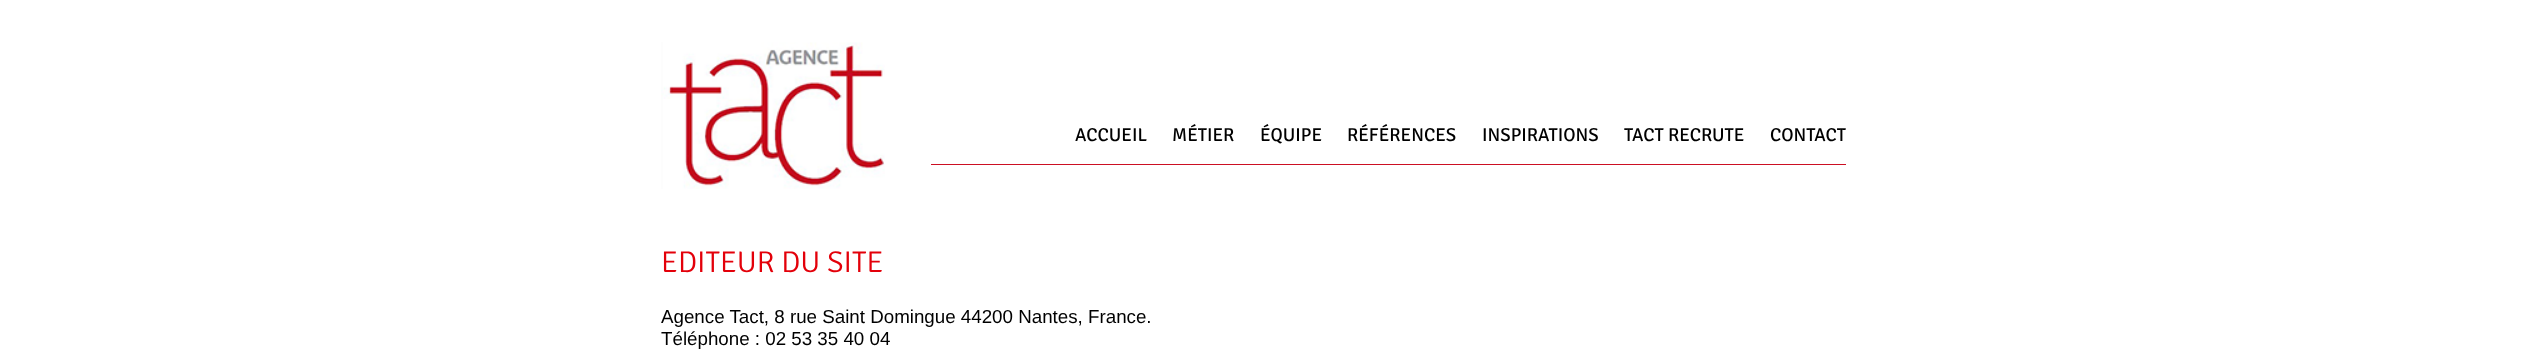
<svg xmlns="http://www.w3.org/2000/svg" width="2521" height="360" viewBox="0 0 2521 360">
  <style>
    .t1 { font: 18.75px Signika; fill: #000; }
    .t2 { font: 300 30px Signika; fill: #e3000a; }
    .t3 { font: 18.75px Liberation Sans; fill: #000; }
  </style>
  <rect width="100%" height="100%" fill="#fff"/>
  <image x="661" y="42" width="224" height="147" href="images/1.png"/>
  <rect x="931" y="164" width="915" height="1" fill="#cc0f23"/>
  <text x="1075" y="141" class="t1">ACCUEIL</text>
  <text x="1172" y="141" class="t1">MÉTIER</text>
  <text x="1260" y="141" class="t1">ÉQUIPE</text>
  <text x="1347" y="141" class="t1">RÉFÉRENCES</text>
  <text x="1482" y="141" class="t1">INSPIRATIONS</text>
  <text x="1624" y="141" class="t1">TACT RECRUTE</text>
  <text x="1770" y="141" class="t1">CONTACT</text>
  <text x="661" y="272" class="t2">EDITEUR DU SITE</text>
  <text x="661" y="323" class="t3">Agence Tact, 8 rue Saint Domingue 44200 Nantes, France.</text>
  <text x="661" y="345" class="t3">Téléphone : 02 53 35 40 04</text>
</svg>
